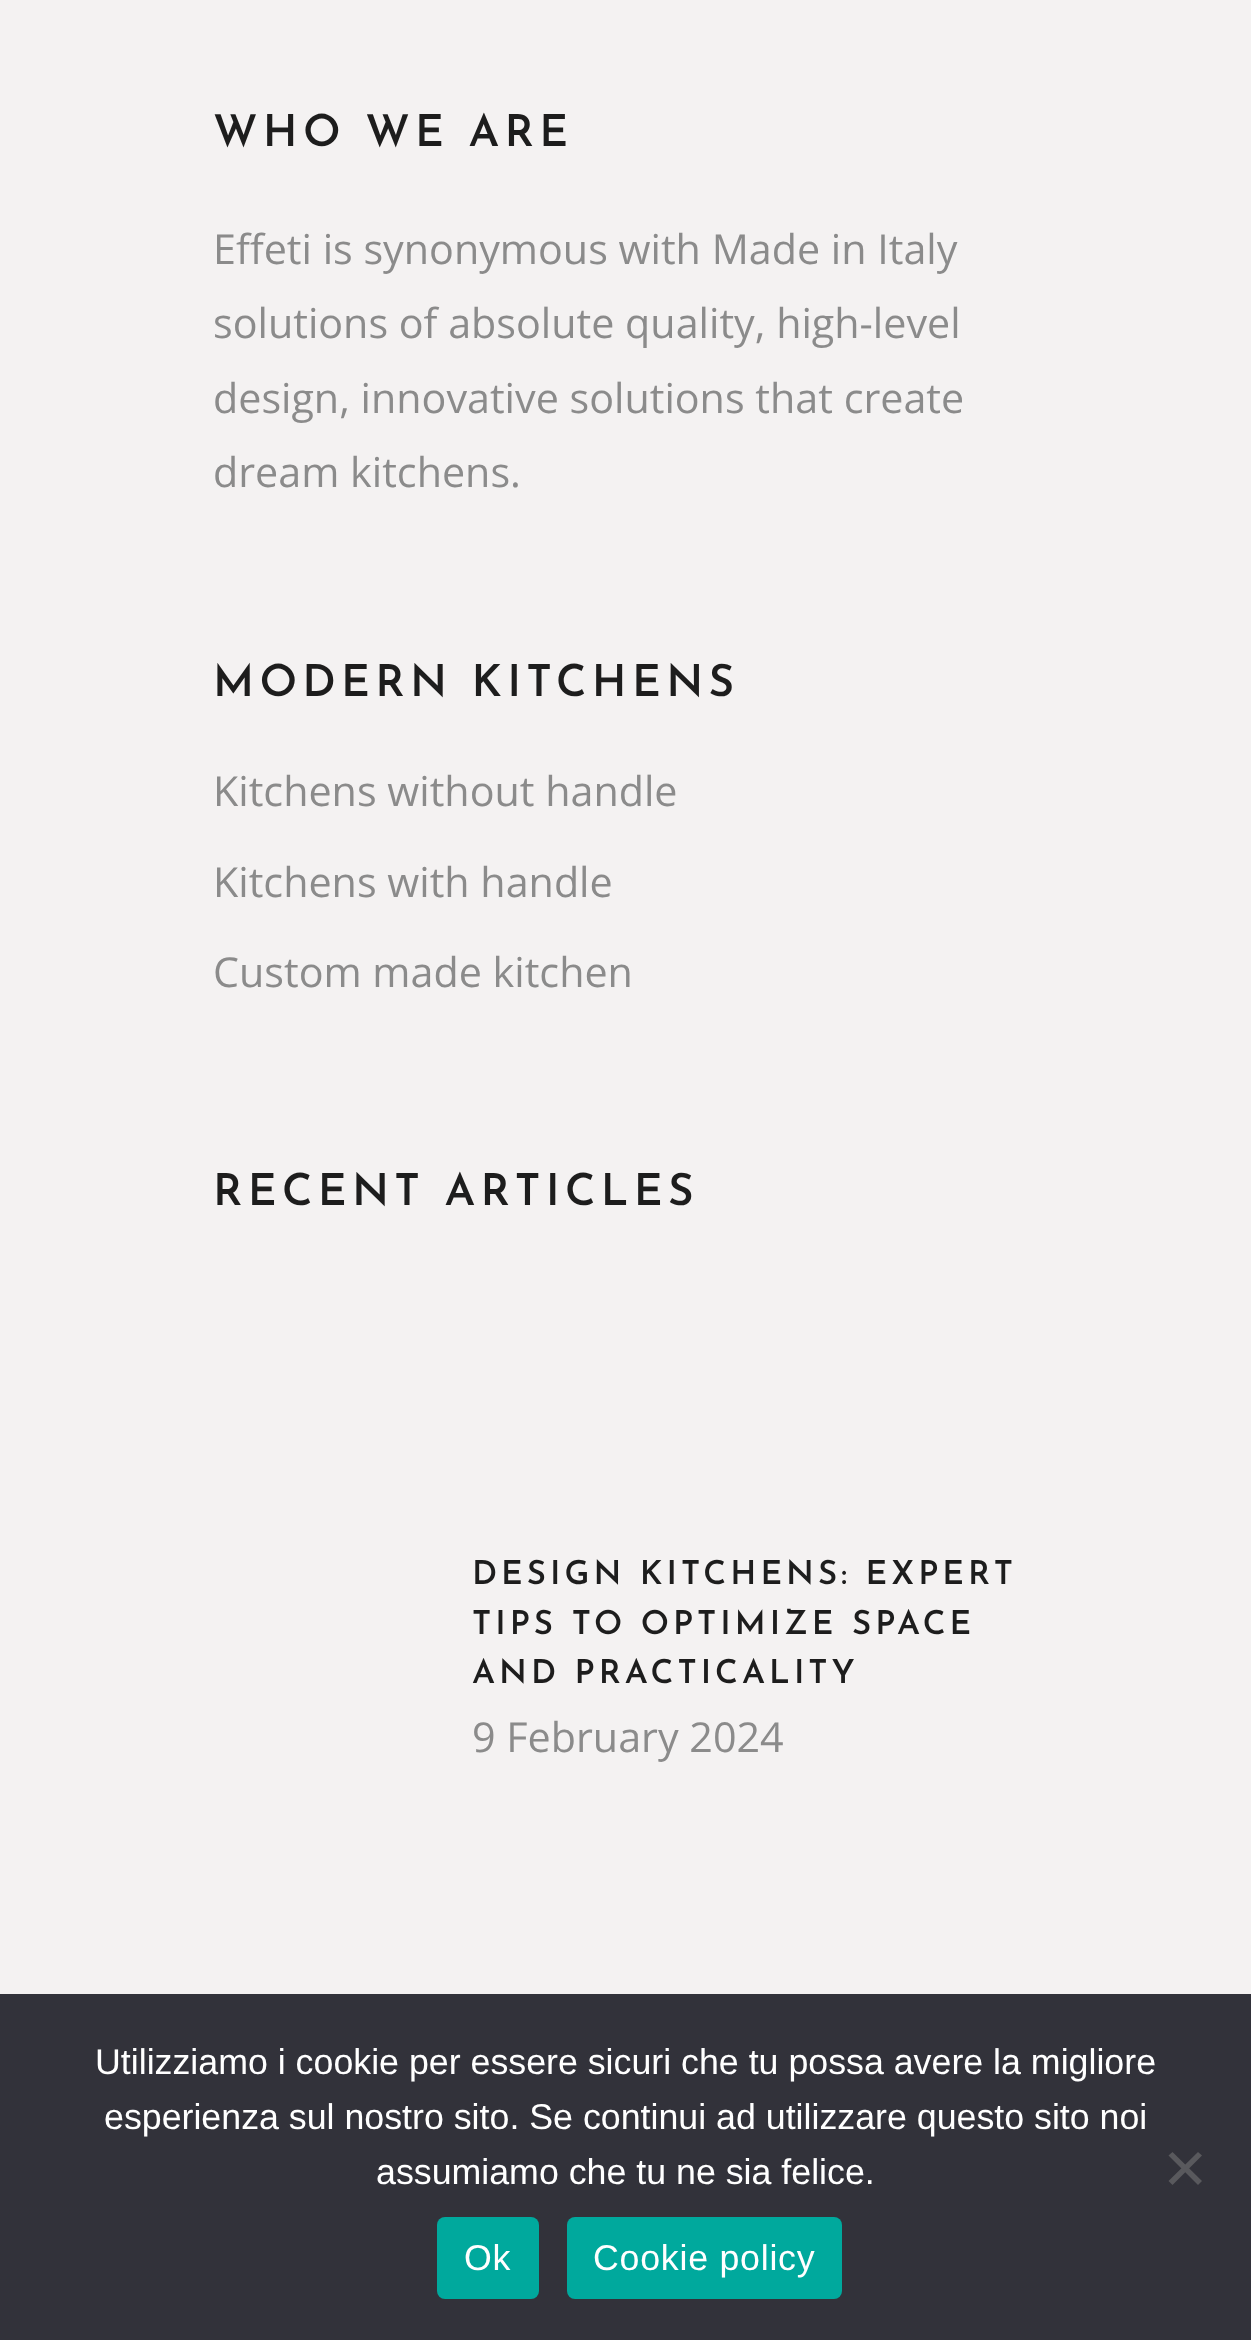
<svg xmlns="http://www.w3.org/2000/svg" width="1251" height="2340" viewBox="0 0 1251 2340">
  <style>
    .t1 { font: 600 44px Josefin Sans; letter-spacing: 5.25px; fill: #1d1d1d; }
    .t2 { font: 41.25px Open Sans; fill: #8b8b8b; }
    .t3 { font: 600 33px Josefin Sans; letter-spacing: 4px; fill: #1d1d1d; }
    .t4 { font: 35.75px Liberation Sans; fill: #fff; }
    .t5 { font: 35.75px Liberation Sans; letter-spacing: 0.75px; fill: #fff; }
  </style>
  <rect width="100%" height="100%" fill="#f4f2f2"/>
  <text x="213" y="146" class="t1">WHO WE ARE</text>
  <text x="213" y="264" class="t2">Effeti is synonymous with Made in Italy</text>
  <text x="213" y="338" class="t2">solutions of absolute quality, high-level</text>
  <text x="213" y="413" class="t2">design, innovative solutions that create</text>
  <text x="213" y="487" class="t2">dream kitchens.</text>
  <text x="213" y="696" class="t1">MODERN KITCHENS</text>
  <text x="213" y="806" class="t2">Kitchens without handle</text>
  <text x="213" y="897" class="t2">Kitchens with handle</text>
  <text x="213" y="987" class="t2">Custom made kitchen</text>
  <text x="213" y="1205" class="t1">RECENT ARTICLES</text>
  <text x="472" y="1584" class="t3">DESIGN KITCHENS: EXPERT</text>
  <text x="472" y="1634" class="t3">TIPS TO OPTIMIZE SPACE</text>
  <text x="472" y="1683" class="t3">AND PRACTICALITY</text>
  <text x="472" y="1752" class="t2">9 February 2024</text>
  <rect x="0" y="1994" width="1251" height="346" fill="#32323a"/>
  <text x="95" y="2074" class="t4">Utilizziamo i cookie per essere sicuri che tu possa avere la migliore</text>
  <text x="104" y="2129" class="t4">esperienza sul nostro sito. Se continui ad utilizzare questo sito noi</text>
  <text x="376" y="2184" class="t4">assumiamo che tu ne sia felice.</text>
  <path d="M1198 2152L1202 2155.5L1172.5 2185L1168.5 2181Z" fill="#59595d"/>
  <path d="M1168.5 2155.5L1172.5 2152L1202 2181L1198 2185Z" fill="#59595d"/>
  <rect x="437" y="2217" width="102" height="82" rx="8" fill="#00a99d"/>
  <text x="464" y="2270" class="t5">Ok</text>
  <rect x="567" y="2217" width="275" height="82" rx="8" fill="#00a99d"/>
  <text x="593" y="2270" class="t5">Cookie policy</text>
</svg>
